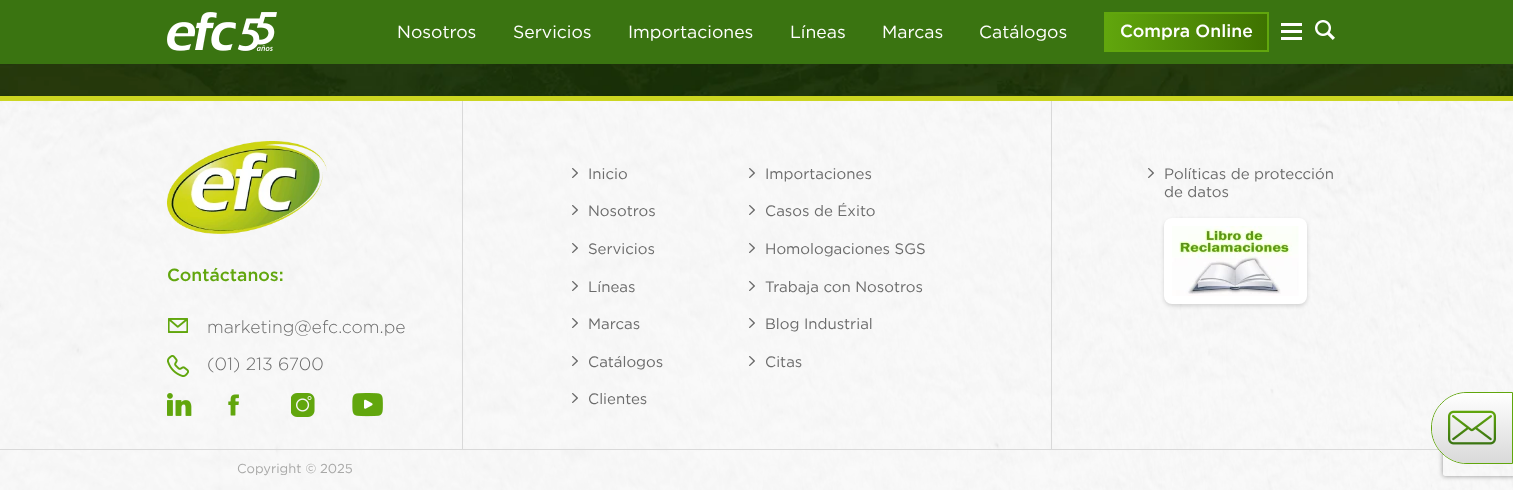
<svg xmlns="http://www.w3.org/2000/svg" width="1513" height="490" viewBox="0 0 1513 490">
  <style>
    .t1 { font: 17.6px Gotham; fill: #fff; }
    .t2 { font: 500 17.6px Gotham; fill: #fff; }
    .t3 { font: 500 17.6px Gotham; fill: #61a60d; }
    .t4 { font: 300 17.6px Gotham; fill: #6b6b6b; }
    .t5 { font: 15px Gotham; fill: #6b6b6b; }
    .t6 { font: 13px Gotham; fill: #a8a8a7; }
  </style>
  <defs>
    <linearGradient id="g1" gradientUnits="userSpaceOnUse" x1="1106" y1="32" x2="1267" y2="32"><stop offset="0" stop-color="#61a60d"/><stop offset="1" stop-color="#3e7200"/></linearGradient>
    <clipPath id="clip1"><path d="M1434 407H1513V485H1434ZM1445 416H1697C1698 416 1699 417 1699 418V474C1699 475 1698 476 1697 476H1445C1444 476 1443 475 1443 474V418C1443 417 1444 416 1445 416Z" clip-rule="evenodd"/></clipPath>
    <linearGradient id="g2" gradientUnits="userSpaceOnUse" x1="1472" y1="393" x2="1472" y2="463"><stop offset="0" stop-color="#fff"/><stop offset="1" stop-color="#d9d9d9"/></linearGradient>
  </defs>
  <rect width="100%" height="100%" fill="#fff"/>
  <rect x="0" y="0" width="1513" height="64" fill="#3a7411"/>
  <image x="167" y="12" width="110" height="40" href="images/1.png"/>
  <text x="397" y="38" class="t1">Nosotros</text>
  <text x="513" y="38" class="t1">Servicios</text>
  <text x="628" y="38" class="t1">Importaciones</text>
  <text x="790" y="38" class="t1">Líneas</text>
  <text x="882" y="38" class="t1">Marcas</text>
  <text x="979" y="38" class="t1">Catálogos</text>
  <rect x="1106" y="14" width="161" height="36" fill="url(#g1)"/>
  <rect x="1105" y="13" width="163" height="38" fill="none" stroke="#61a60d" stroke-width="2"/>
  <text x="1120" y="37" class="t2">Compra Online</text>
  <rect x="1281" y="37" width="21" height="3" fill="#fff"/>
  <rect x="1281" y="30" width="21" height="3" fill="#fff"/>
  <rect x="1281" y="23" width="21" height="3" fill="#fff"/>
  <image x="1315" y="20" width="20" height="20" href="images/2.png"/>
  <image x="0" y="64" width="1513" height="32" href="images/3.png"/>
  <rect x="0" y="96" width="1513" height="5" fill="#ccd621"/>
  <g clip-path="url(#clip1)">
    <rect x="1443" y="416" width="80" height="60" rx="2" fill="#808080" filter="blur(2.5px)"/>
  </g>
  <image x="0" y="101" width="1513" height="389" href="images/4.png"/>
  <image x="167" y="141" width="160" height="93" href="images/5.png"/>
  <text x="167" y="281" class="t3">Contáctanos:</text>
  <image x="168" y="318" width="20" height="15" href="images/6.png"/>
  <text x="207" y="333" class="t4">marketing@efc.com.pe</text>
  <image x="167" y="355" width="22" height="22" href="images/7.png"/>
  <text x="207" y="370" class="t4">(01) 213 6700</text>
  <image x="167" y="393" width="25" height="23" href="images/8.png"/>
  <image x="228" y="394" width="11" height="22" href="images/9.png"/>
  <image x="291" y="393" width="24" height="24" href="images/10.png"/>
  <image x="352" y="393" width="31" height="24" href="images/11.png"/>
  <rect x="1051" y="101" width="1" height="348" fill="#d9d9d9"/>
  <rect x="462" y="101" width="1" height="348" fill="#d9d9d9"/>
  <image x="572" y="168" width="6" height="10" href="images/12.png"/>
  <text x="588" y="179" class="t5">Inicio</text>
  <image x="749" y="168" width="6" height="10" href="images/13.png"/>
  <text x="765" y="179" class="t5">Importaciones</text>
  <image x="572" y="205" width="6" height="10" href="images/14.png"/>
  <text x="588" y="216" class="t5">Nosotros</text>
  <image x="749" y="205" width="6" height="10" href="images/15.png"/>
  <text x="765" y="216" class="t5">Casos de Éxito</text>
  <image x="572" y="243" width="6" height="10" href="images/16.png"/>
  <text x="588" y="254" class="t5">Servicios</text>
  <image x="749" y="243" width="6" height="10" href="images/17.png"/>
  <text x="765" y="254" class="t5">Homologaciones SGS</text>
  <image x="572" y="281" width="6" height="10" href="images/18.png"/>
  <text x="588" y="292" class="t5">Líneas</text>
  <image x="749" y="281" width="6" height="10" href="images/19.png"/>
  <text x="765" y="292" class="t5">Trabaja con Nosotros</text>
  <image x="572" y="318" width="6" height="10" href="images/20.png"/>
  <text x="588" y="329" class="t5">Marcas</text>
  <image x="749" y="318" width="6" height="10" href="images/21.png"/>
  <text x="765" y="329" class="t5">Blog Industrial</text>
  <image x="572" y="356" width="6" height="10" href="images/22.png"/>
  <text x="588" y="367" class="t5">Catálogos</text>
  <image x="749" y="356" width="6" height="10" href="images/23.png"/>
  <text x="765" y="367" class="t5">Citas</text>
  <image x="572" y="393" width="6" height="10" href="images/24.png"/>
  <text x="588" y="404" class="t5">Clientes</text>
  <image x="1148" y="168" width="6" height="10" href="images/25.png"/>
  <text x="1164" y="179" class="t5">Políticas de protección</text>
  <text x="1164" y="197" class="t5">de datos</text>
  <rect x="1164" y="220" width="143" height="86" rx="8" fill="#00000026" filter="blur(2px)"/>
  <rect x="1164" y="218" width="143" height="86" rx="8" fill="#fff"/>
  <image x="1172" y="226" width="127" height="70" href="images/26.png"/>
  <rect x="0" y="449" width="1440" height="1" fill="#d9d9d9"/>
  <text x="237" y="473" class="t6">Copyright © 2025</text>
  <path d="M1467 392.5H1512.5V463.5H1467C1447.5 463.5 1431.5 447.5 1431.5 428C1431.5 408.5 1447.5 392.5 1467 392.5Z" fill="none" stroke="#61a60d"/>
  <path d="M1467 393H1512V463H1467C1447.5 463 1432 447.5 1432 428C1432 408.5 1447.5 393 1467 393Z" fill="url(#g2)"/>
  <image x="1448" y="410" width="48" height="35" href="images/27.png"/>
</svg>
